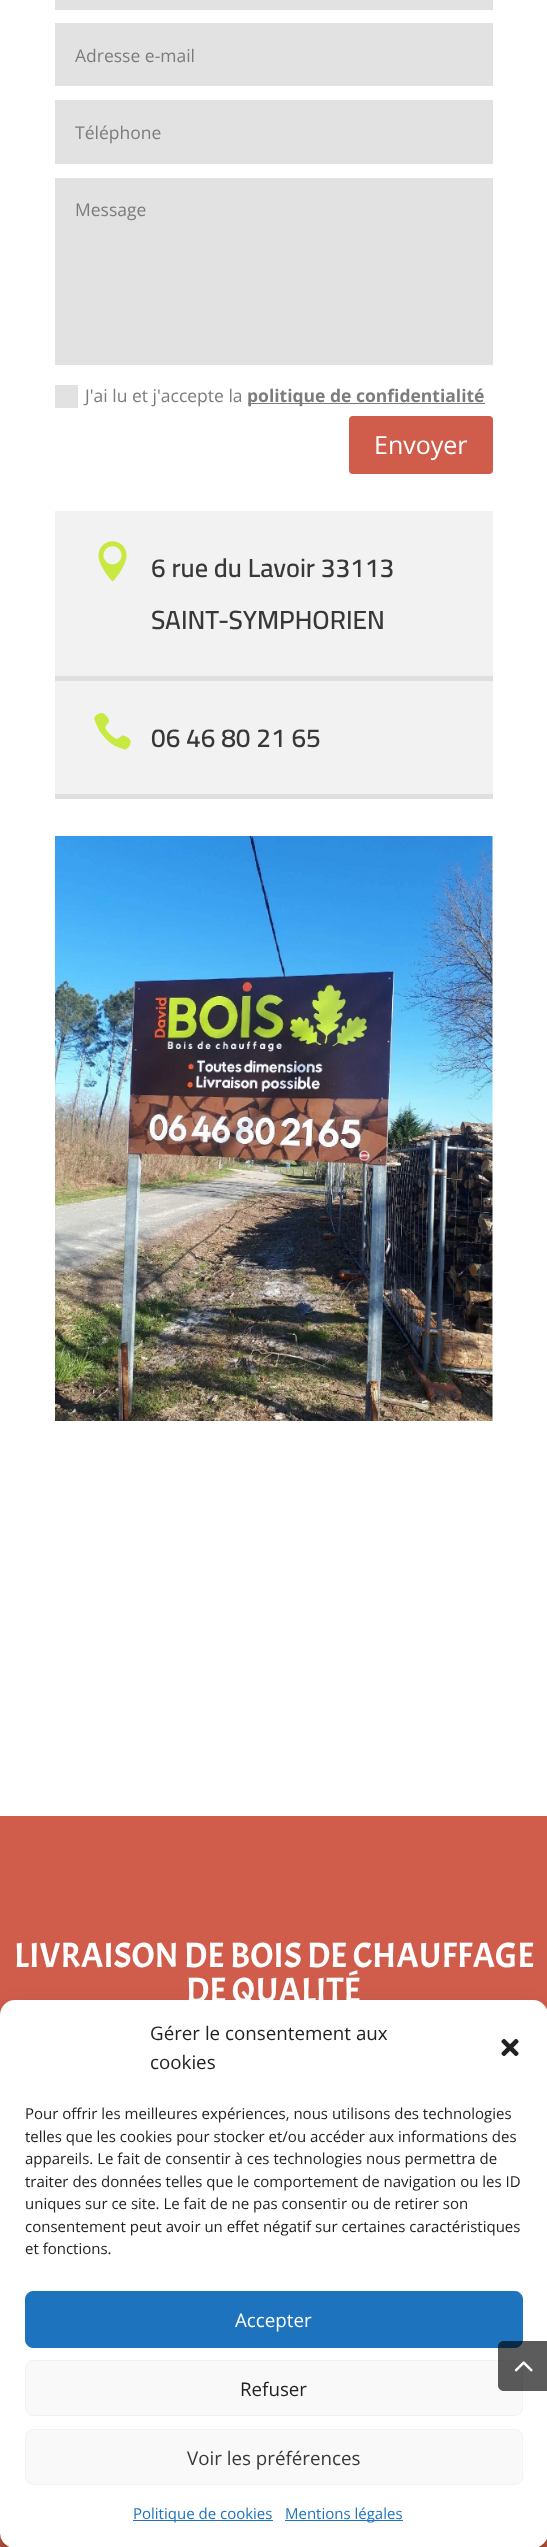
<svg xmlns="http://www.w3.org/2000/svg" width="547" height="2547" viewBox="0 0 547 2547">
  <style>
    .t1 { font: 17.5px Open Sans; fill: #7c7c7c; }
    .t2 { font: bold 17.5px Open Sans; fill: #7c7c7c; }
    .t3 { font: 25px Open Sans; fill: #fff; }
    .t4 { font: 600 26.25px Cairo; fill: #383838; }
    .t5 { font: 35px Acme; fill: #fff; }
    .t6 { font: 18.75px Open Sans; fill: #222; }
    .t7 { font: 15px Open Sans; fill: #222; }
    .t8 { font: 18.75px Open Sans; fill: #fff; }
    .t9 { font: 18.75px Open Sans; fill: #383838; }
    .t10 { font: 15px Open Sans; fill: #1e73be; }
  </style>
  <rect width="100%" height="100%" fill="#fff"/>
  <rect x="55" y="0" width="438" height="10" fill="#e2e2e2"/>
  <rect x="55" y="23" width="438" height="63" fill="#e2e2e2"/>
  <text x="75" y="62" class="t1">Adresse e-mail</text>
  <rect x="55" y="100" width="438" height="64" fill="#e2e2e2"/>
  <text x="75" y="139" class="t1">Téléphone</text>
  <rect x="55" y="178" width="438" height="187" fill="#e2e2e2"/>
  <text x="75" y="216" class="t1">Message</text>
  <rect x="55" y="385" width="23" height="23" fill="#e2e2e2"/>
  <text x="85" y="402" class="t1">J'ai lu et j'accepte la</text>
  <rect x="248" y="403" width="237" height="1" fill="#7c7c7c"/>
  <text x="247" y="402" class="t2">politique de confidentialité</text>
  <rect x="349" y="416" width="144" height="58" rx="4" fill="#d05d4c"/>
  <text x="374" y="454" class="t3">Envoyer</text>
  <rect x="55" y="511" width="438" height="165" fill="#f2f2f2"/>
  <rect x="55" y="676" width="438" height="5" fill="#dfdfdf"/>
  <image x="98" y="541" width="29" height="41" href="images/1.png"/>
  <text x="151" y="577" class="t4">6 rue du Lavoir 33113</text>
  <text x="151" y="629" class="t4">SAINT-SYMPHORIEN</text>
  <rect x="55" y="681" width="438" height="113" fill="#f2f2f2"/>
  <rect x="55" y="794" width="438" height="5" fill="#dfdfdf"/>
  <image x="94" y="712" width="37" height="38" href="images/2.png"/>
  <text x="151" y="747" class="t4">06 46 80 21 65</text>
  <image x="55" y="836" width="438" height="585" href="images/3.png"/>
  <rect x="0" y="1816" width="547" height="731" fill="#d05d4c"/>
  <text x="14" y="1967" class="t5">LIVRAISON DE BOIS DE CHAUFFAGE</text>
  <text x="186" y="2002" class="t5">DE QUALITÉ</text>
  <rect x="0" y="2008" width="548" height="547" rx="15" fill="#0000003b" filter="blur(4px)"/>
  <rect x="0" y="2013" width="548" height="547" rx="15" fill="#00000030" filter="blur(12.5px)"/>
  <rect x="0" y="2000" width="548" height="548" rx="15" fill="#fff"/>
  <rect x="25.5" y="2291.5" width="497" height="56" rx="7.5" fill="#1e73be" stroke="#1e73be"/>
  <rect x="25.5" y="2360.5" width="497" height="55" rx="7.5" fill="#f9f9f9" stroke="#f2f2f2"/>
  <path d="M504 2341H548V2391H504C500.5 2391 498 2388.5 498 2385V2347C498 2343.5 500.5 2341 504 2341Z" fill="#00000066"/>
  <image x="514" y="2361" width="19" height="11" href="images/4.png"/>
  <text x="150" y="2040" class="t6">Gérer le consentement aux</text>
  <text x="150" y="2069" class="t6">cookies</text>
  <image x="501" y="2038" width="18" height="18" href="images/5.png"/>
  <text x="25" y="2119" class="t7">Pour offrir les meilleures expériences, nous utilisons des technologies</text>
  <text x="25" y="2142" class="t7">telles que les cookies pour stocker et/ou accéder aux informations des</text>
  <text x="25" y="2164" class="t7">appareils. Le fait de consentir à ces technologies nous permettra de</text>
  <text x="25" y="2187" class="t7">traiter des données telles que le comportement de navigation ou les ID</text>
  <text x="25" y="2209" class="t7">uniques sur ce site. Le fait de ne pas consentir ou de retirer son</text>
  <text x="25" y="2232" class="t7">consentement peut avoir un effet négatif sur certaines caractéristiques</text>
  <text x="25" y="2254" class="t7">et fonctions.</text>
  <text x="235" y="2327" class="t8">Accepter</text>
  <text x="240" y="2396" class="t6">Refuser</text>
  <rect x="25.5" y="2429.5" width="497" height="55" rx="7.5" fill="#f9f9f9" stroke="#f2f2f2"/>
  <text x="187" y="2465" class="t9">Voir les préférences</text>
  <rect x="133" y="2520" width="140" height="1" fill="#1e73be"/>
  <text x="133" y="2519" class="t10">Politique de cookies</text>
  <rect x="285" y="2520" width="118" height="1" fill="#1e73be"/>
  <text x="285" y="2519" class="t10">Mentions légales</text>
  <path d="M504 2341H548V2391H504C500.5 2391 498 2388.5 498 2385V2347C498 2343.5 500.5 2341 504 2341Z" fill="#00000066"/>
  <image x="514" y="2361" width="19" height="11" href="images/6.png"/>
</svg>
